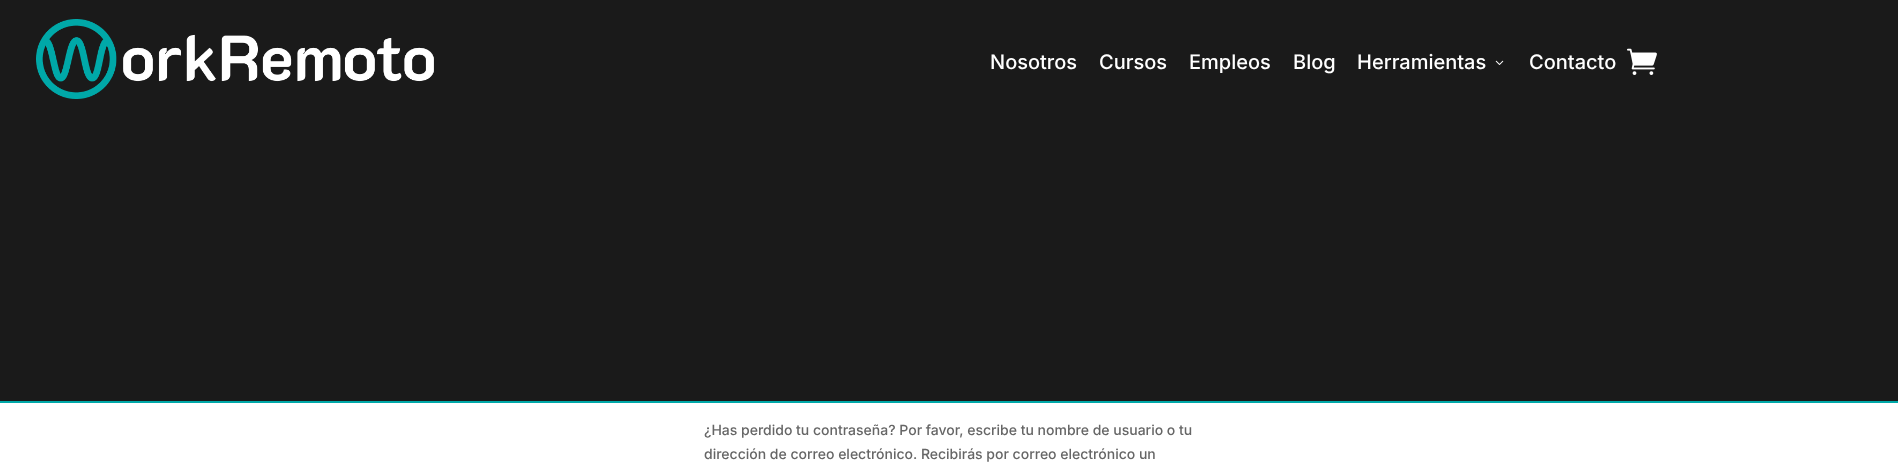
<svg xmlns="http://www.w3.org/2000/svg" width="1898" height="472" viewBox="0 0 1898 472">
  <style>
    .t1 { font: 500 20px Inter; fill: #fff; }
    .t2 { font: 500 14px Inter; fill: #666; }
  </style>
  <rect width="100%" height="100%" fill="#fff"/>
  <rect x="0" y="0" width="1898" height="401" fill="#1a1a1a"/>
  <rect x="0" y="401" width="1898" height="2" fill="#00a8a8"/>
  <image x="36" y="19" width="398" height="80" href="images/1.png"/>
  <text x="990" y="69" class="t1">Nosotros</text>
  <text x="1099" y="69" class="t1">Cursos</text>
  <text x="1189" y="69" class="t1">Empleos</text>
  <text x="1293" y="69" class="t1">Blog</text>
  <text x="1357" y="69" class="t1">Herramientas</text>
  <image x="1495" y="60" width="9" height="5" href="images/2.png"/>
  <text x="1529" y="69" class="t1">Contacto</text>
  <image x="1627" y="48" width="30" height="27" href="images/3.png"/>
  <text x="704" y="435" class="t2">¿Has perdido tu contraseña? Por favor, escribe tu nombre de usuario o tu</text>
  <text x="704" y="459" class="t2">dirección de correo electrónico. Recibirás por correo electrónico un</text>
</svg>
